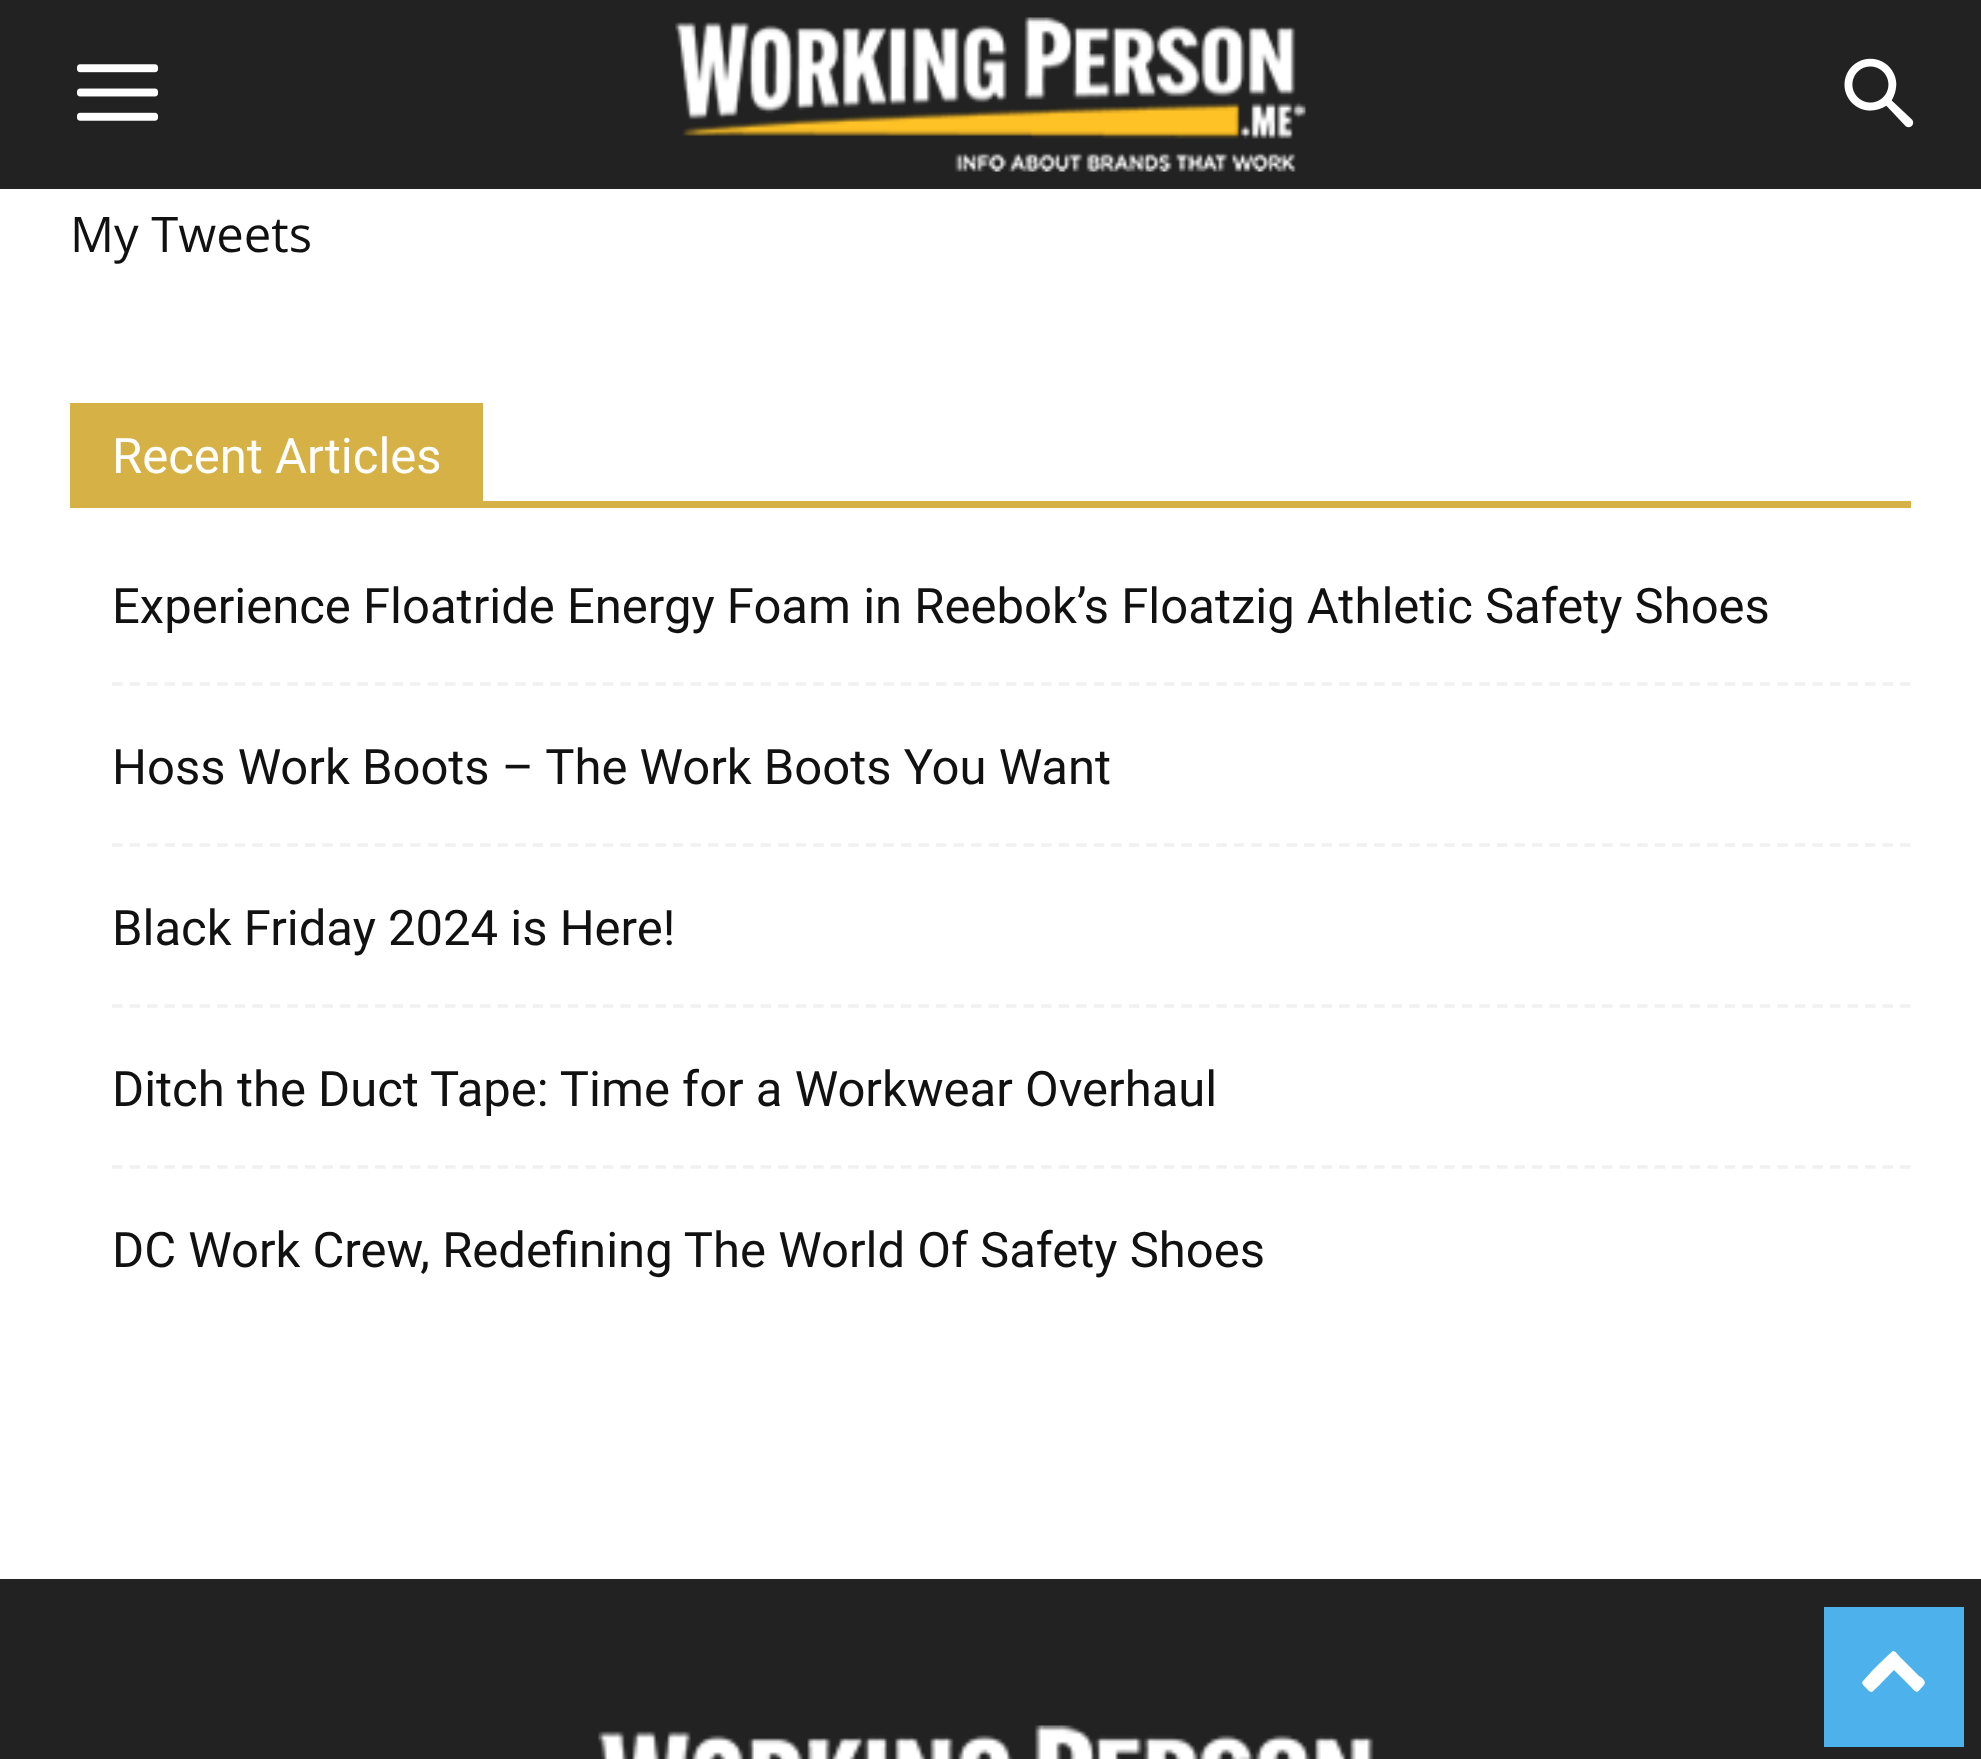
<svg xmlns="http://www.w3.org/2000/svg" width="1981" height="1759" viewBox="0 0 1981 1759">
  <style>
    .t1 { font: 49px Open Sans; fill: #111; }
    .t2 { font: 49px Roboto; fill: #fff; }
    .t3 { font: 49px Roboto; fill: #111; }
  </style>
  <rect width="100%" height="100%" fill="#fff"/>
  <rect x="0" y="0" width="1981" height="189" fill="#222"/>
  <image x="77" y="64" width="82" height="57" href="images/1.png"/>
  <image x="675" y="17" width="631" height="155" href="images/2.png"/>
  <image x="1844" y="58" width="70" height="70" href="images/3.png"/>
  <text x="70" y="252" class="t1">My Tweets</text>
  <rect x="70" y="501" width="1841" height="7" fill="#d6b246"/>
  <rect x="70" y="403" width="413" height="98" fill="#d6b246"/>
  <text x="112" y="473" class="t2">Recent Articles</text>
  <path d="M112 684H1911" fill="none" stroke="#f1f1f1" stroke-width="3.5" stroke-dasharray="10.5 7.03"/>
  <text x="112" y="623" class="t3">Experience Floatride Energy Foam in Reebok’s Floatzig Athletic Safety Shoes</text>
  <path d="M112 845H1911" fill="none" stroke="#f1f1f1" stroke-width="3.5" stroke-dasharray="10.5 7.03"/>
  <text x="112" y="784" class="t3">Hoss Work Boots – The Work Boots You Want</text>
  <path d="M112 1006H1911" fill="none" stroke="#f1f1f1" stroke-width="3.5" stroke-dasharray="10.5 7.03"/>
  <text x="112" y="945" class="t3">Black Friday 2024 is Here!</text>
  <path d="M112 1167H1911" fill="none" stroke="#f1f1f1" stroke-width="3.5" stroke-dasharray="10.5 7.03"/>
  <text x="112" y="1106" class="t3">Ditch the Duct Tape: Time for a Workwear Overhaul</text>
  <text x="112" y="1267" class="t3">DC Work Crew, Redefining The World Of Safety Shoes</text>
  <rect x="0" y="1579" width="1981" height="180" fill="#222"/>
  <image x="598" y="1725" width="776" height="34" href="images/4.png"/>
  <rect x="1824" y="1607" width="140" height="140" fill="#4db2ec"/>
  <path d="M1924 1685C1917 1692 1918 1695 1911 1687L1894 1670C1891 1673 1874 1691 1872 1692C1870 1692 1868 1690 1867 1689C1866 1687 1860 1684 1863 1681L1872 1671C1875 1668 1891 1652 1893 1651C1896 1651 1899 1656 1900 1657L1919 1676C1921 1677 1927 1681 1924 1685Z" fill="#fff"/>
</svg>
